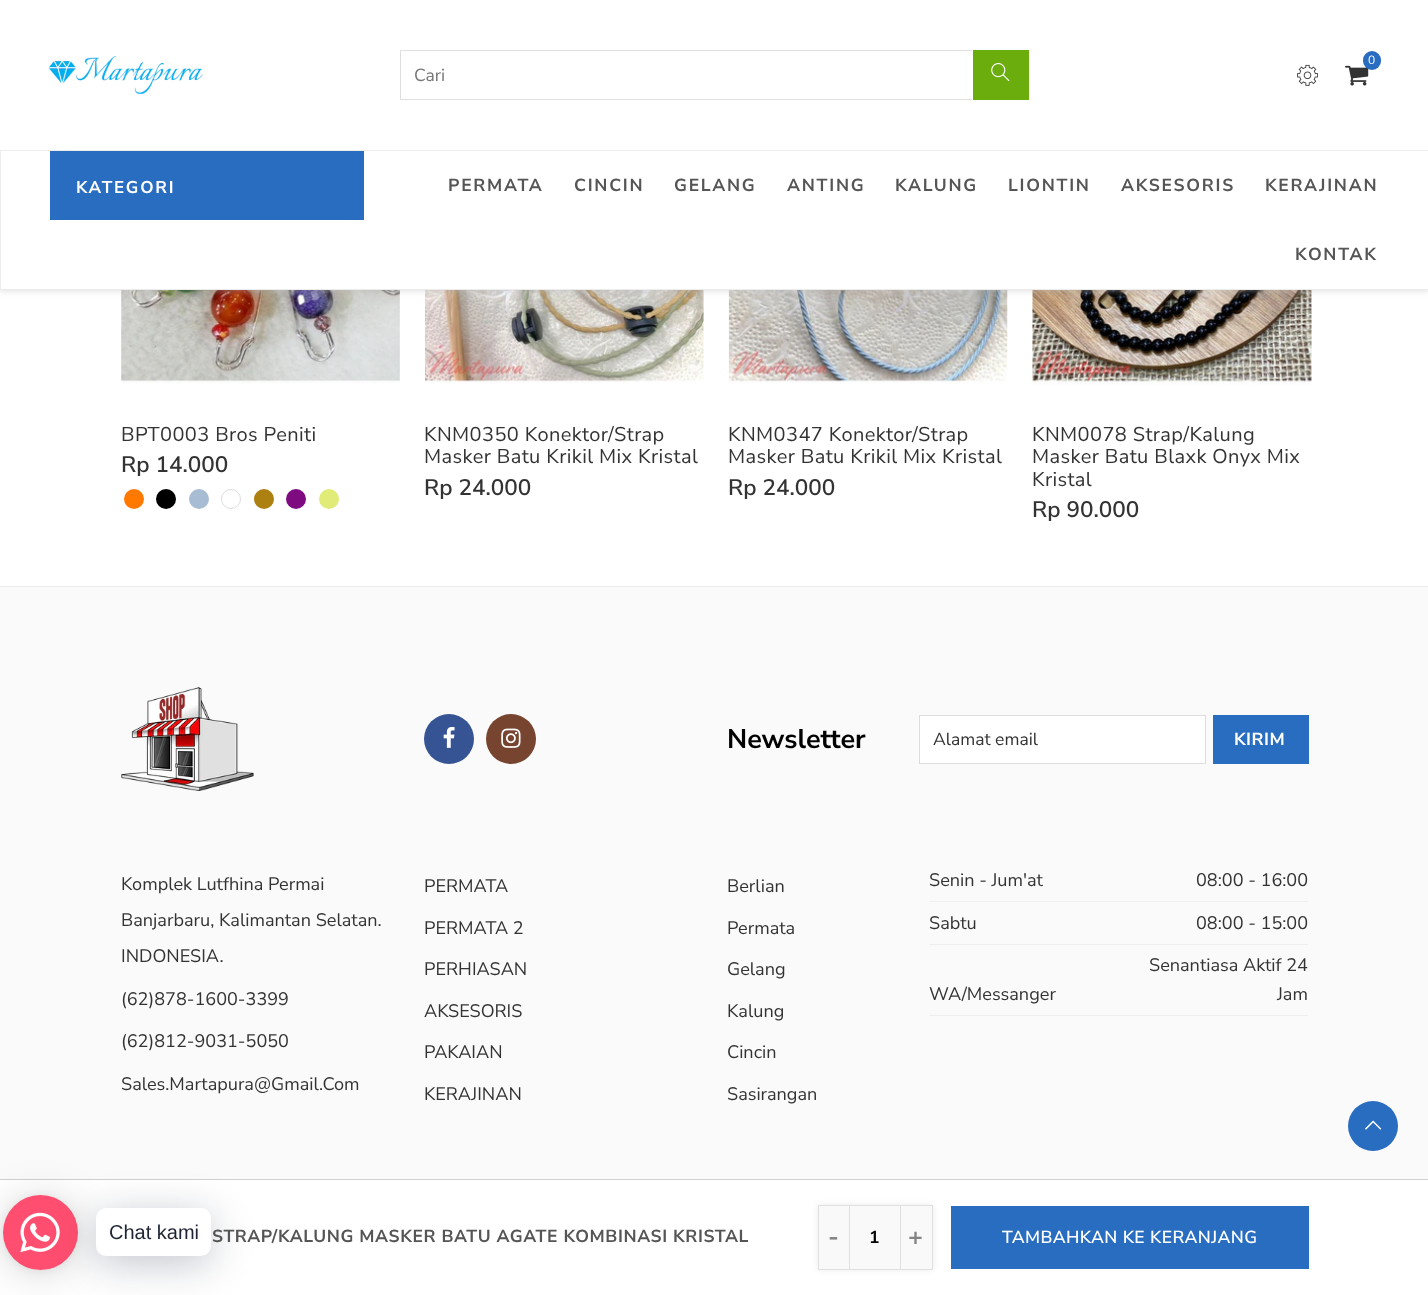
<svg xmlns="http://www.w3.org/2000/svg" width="1428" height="1295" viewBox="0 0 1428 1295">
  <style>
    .t1 { font: 17.5px Nunito Sans; fill: #757575; }
    .t2 { font: 12px Nunito Sans; fill: #fff; }
    .t3 { font: bold 17px Nunito Sans; letter-spacing: 1.75px; fill: #fff; }
    .t4 { font: bold 17.5px Nunito Sans; letter-spacing: 1.75px; fill: #555; }
    .t5 { font: 20px Nunito Sans; letter-spacing: 0.4px; fill: #333; }
    .t6 { font: 600 22.5px Nunito Sans; fill: #333; }
    .t7 { font: bold 27px Nunito Sans; fill: #000; }
    .t8 { font: 17.5px Nunito Sans; fill: #333; }
    .t9 { font: bold 17.5px Nunito Sans; letter-spacing: 0.5px; fill: #fff; }
    .t10 { font: 18.1px Nunito Sans; fill: #333; }
    .t11 { font: 20px Liberation Sans; fill: #1e2433; }
    .t12 { font: bold 17.5px Nunito Sans; letter-spacing: 0.6px; fill: #555; }
    .t13 { font: bold 25px Nunito Sans; fill: #848484; }
    .t14 { font: bold 17.5px Nunito Sans; fill: #000; }
    .t15 { font: 600 17.5px Nunito Sans; letter-spacing: 0.4px; fill: #fff; }
  </style>
  <rect width="100%" height="100%" fill="#fff"/>
  <image x="121" y="290" width="279" height="94" href="images/5.png"/>
  <image x="425" y="290" width="279" height="94" href="images/6.png"/>
  <image x="728" y="290" width="280" height="94" href="images/7.png"/>
  <image x="1032" y="290" width="280" height="95" href="images/8.png"/>
  <rect x="0" y="1" width="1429" height="290" fill="#bebebe80" filter="blur(3px)"/>
  <rect x="0" y="0" width="1428" height="289" fill="#fff"/>
  <image x="48" y="56" width="155" height="38" href="images/1.png"/>
  <path d="M400 50H972V51H401Z" fill="#e0e0e0"/>
  <path d="M972 100H400L401 99H972Z" fill="#e0e0e0"/>
  <path d="M400 100V50L401 51V99Z" fill="#81818140"/>
  <text x="414" y="81" class="t1">Cari</text>
  <rect x="973" y="50" width="56" height="50" fill="#6bad0d"/>
  <image x="991" y="63" width="19" height="19" href="images/2.png"/>
  <image x="1345" y="65" width="24" height="21" href="images/3.png"/>
  <rect x="1363" y="51" width="18" height="19" rx="9" fill="#296dc1"/>
  <text x="1368" y="64" class="t2">0</text>
  <image x="1297" y="64" width="21" height="22" href="images/4.png"/>
  <rect x="0.5" y="150.5" width="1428" height="139" fill="none" stroke="#ececec"/>
  <rect x="50" y="151" width="314" height="69" fill="#296dc1"/>
  <text x="76" y="193" class="t3">KATEGORI</text>
  <text x="448" y="191" class="t4">PERMATA</text>
  <text x="574" y="191" class="t4">CINCIN</text>
  <text x="674" y="191" class="t4">GELANG</text>
  <text x="787" y="191" class="t4">ANTING</text>
  <text x="895" y="191" class="t4">KALUNG</text>
  <text x="1008" y="191" class="t4">LIONTIN</text>
  <text x="1121" y="191" class="t4">AKSESORIS</text>
  <text x="1265" y="191" class="t4">KERAJINAN</text>
  <text x="1295" y="260" class="t4">KONTAK</text>
  <text x="121" y="441" class="t5">BPT0003 Bros Peniti</text>
  <text x="121" y="472" class="t6">Rp 14.000</text>
  <circle cx="134" cy="499" r="10" fill="#ff7900"/>
  <circle cx="166" cy="499" r="10" fill="#000"/>
  <circle cx="199" cy="499" r="10" fill="#a8bcd4"/>
  <circle cx="231" cy="499" r="9.5" fill="none" stroke="#ddd"/>
  <circle cx="264" cy="499" r="10" fill="#ad8111"/>
  <circle cx="296" cy="499" r="10" fill="#7e0b80"/>
  <circle cx="329" cy="499" r="10" fill="#e1eb78"/>
  <text x="424" y="441" class="t5">KNM0350 Konektor/Strap</text>
  <text x="424" y="463" class="t5">Masker Batu Krikil Mix Kristal</text>
  <text x="424" y="495" class="t6">Rp 24.000</text>
  <text x="728" y="441" class="t5">KNM0347 Konektor/Strap</text>
  <text x="728" y="463" class="t5">Masker Batu Krikil Mix Kristal</text>
  <text x="728" y="495" class="t6">Rp 24.000</text>
  <text x="1032" y="441" class="t5">KNM0078 Strap/Kalung</text>
  <text x="1032" y="463" class="t5">Masker Batu Blaxk Onyx Mix</text>
  <text x="1032" y="486" class="t5">Kristal</text>
  <text x="1032" y="517" class="t6">Rp 90.000</text>
  <rect x="0" y="587" width="1428" height="593" fill="#fafafa"/>
  <rect x="0" y="586" width="1428" height="1" fill="#ececec"/>
  <image x="121" y="687" width="133" height="104" href="images/9.png"/>
  <circle cx="449" cy="739" r="25" fill="#365493"/>
  <image x="443" y="727" width="12" height="21" href="images/10.png"/>
  <circle cx="511" cy="739" r="25" fill="#774430"/>
  <image x="501" y="728" width="20" height="20" href="images/11.png"/>
  <text x="727" y="748" class="t7">Newsletter</text>
  <rect x="919.5" y="715.5" width="286" height="48" fill="#fff" stroke="#ddd"/>
  <text x="933" y="745" class="t8">Alamat email</text>
  <rect x="1213" y="715" width="96" height="49" fill="#296dc1"/>
  <text x="1234" y="745" class="t9">KIRIM</text>
  <text x="121" y="890" class="t10">Komplek Lutfhina Permai</text>
  <text x="121" y="926" class="t10">Banjarbaru, Kalimantan Selatan.</text>
  <text x="121" y="962" class="t10">INDONESIA.</text>
  <text x="121" y="1005" class="t10">(62)878-1600-3399</text>
  <text x="121" y="1047" class="t10">(62)812-9031-5050</text>
  <text x="121" y="1090" class="t10">Sales.Martapura@Gmail.Com</text>
  <text x="424" y="892" class="t10">PERMATA</text>
  <text x="424" y="934" class="t10">PERMATA 2</text>
  <text x="424" y="975" class="t10">PERHIASAN</text>
  <text x="424" y="1017" class="t10">AKSESORIS</text>
  <text x="424" y="1058" class="t10">PAKAIAN</text>
  <text x="424" y="1100" class="t10">KERAJINAN</text>
  <text x="727" y="892" class="t10">Berlian</text>
  <text x="727" y="934" class="t10">Permata</text>
  <text x="727" y="975" class="t10">Gelang</text>
  <text x="727" y="1017" class="t10">Kalung</text>
  <text x="727" y="1058" class="t10">Cincin</text>
  <text x="727" y="1100" class="t10">Sasirangan</text>
  <rect x="929" y="901" width="379" height="1" fill="#efefef"/>
  <text x="929" y="886" class="t10">Senin - Jum'at</text>
  <text x="1196" y="886" class="t10">08:00 - 16:00</text>
  <rect x="929" y="944" width="379" height="1" fill="#efefef"/>
  <text x="929" y="929" class="t10">Sabtu</text>
  <text x="1196" y="929" class="t10">08:00 - 15:00</text>
  <rect x="929" y="1015" width="379" height="1" fill="#efefef"/>
  <text x="929" y="1000" class="t10">WA/Messanger</text>
  <text x="1149" y="971" class="t10">Senantiasa Aktif 24</text>
  <text x="1277" y="1000" class="t10">Jam</text>
  <circle cx="1373" cy="1126" r="25" fill="#296dc1"/>
  <image x="1365" y="1120" width="17" height="10" href="images/12.png"/>
  <rect x="0" y="1179" width="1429" height="115" fill="#29292933" filter="blur(0.5px)"/>
  <rect x="0" y="1180" width="1428" height="115" fill="#fff"/>
  <rect x="3" y="1198" width="75" height="75" rx="37.5" fill="#00000029" filter="blur(20px)"/>
  <rect x="3" y="1196" width="75" height="75" rx="37.5" fill="#0000000f" filter="blur(4px)"/>
  <circle cx="40.5" cy="1232.5" r="37.5" fill="#ff4e6f"/>
  <rect x="96" y="1215" width="115" height="49" rx="10" fill="#00122e3d" filter="blur(20px)"/>
  <image x="20" y="1212" width="40" height="41" href="images/13.png"/>
  <rect x="96" y="1208" width="115" height="48" rx="10" fill="#fff"/>
  <text x="109" y="1239" class="t11">Chat kami</text>
  <text x="212" y="1242" class="t12">STRAP/KALUNG MASKER BATU AGATE KOMBINASI KRISTAL</text>
  <rect x="818" y="1205" width="115" height="65" fill="#00000014" filter="blur(3px)"/>
  <rect x="818.5" y="1205.5" width="114" height="64" fill="#f9f9f9" stroke="#e0e0e0"/>
  <rect x="849" y="1206" width="1" height="63" fill="#e0e0e0"/>
  <text x="828" y="1245" class="t13">-</text>
  <text x="869" y="1243" class="t14">1</text>
  <rect x="900" y="1206" width="1" height="63" fill="#e0e0e0"/>
  <text x="908" y="1245" class="t13">+</text>
  <rect x="951" y="1206" width="358" height="63" fill="#296dc1"/>
  <text x="1002" y="1243" class="t15">TAMBAHKAN KE KERANJANG</text>
</svg>
